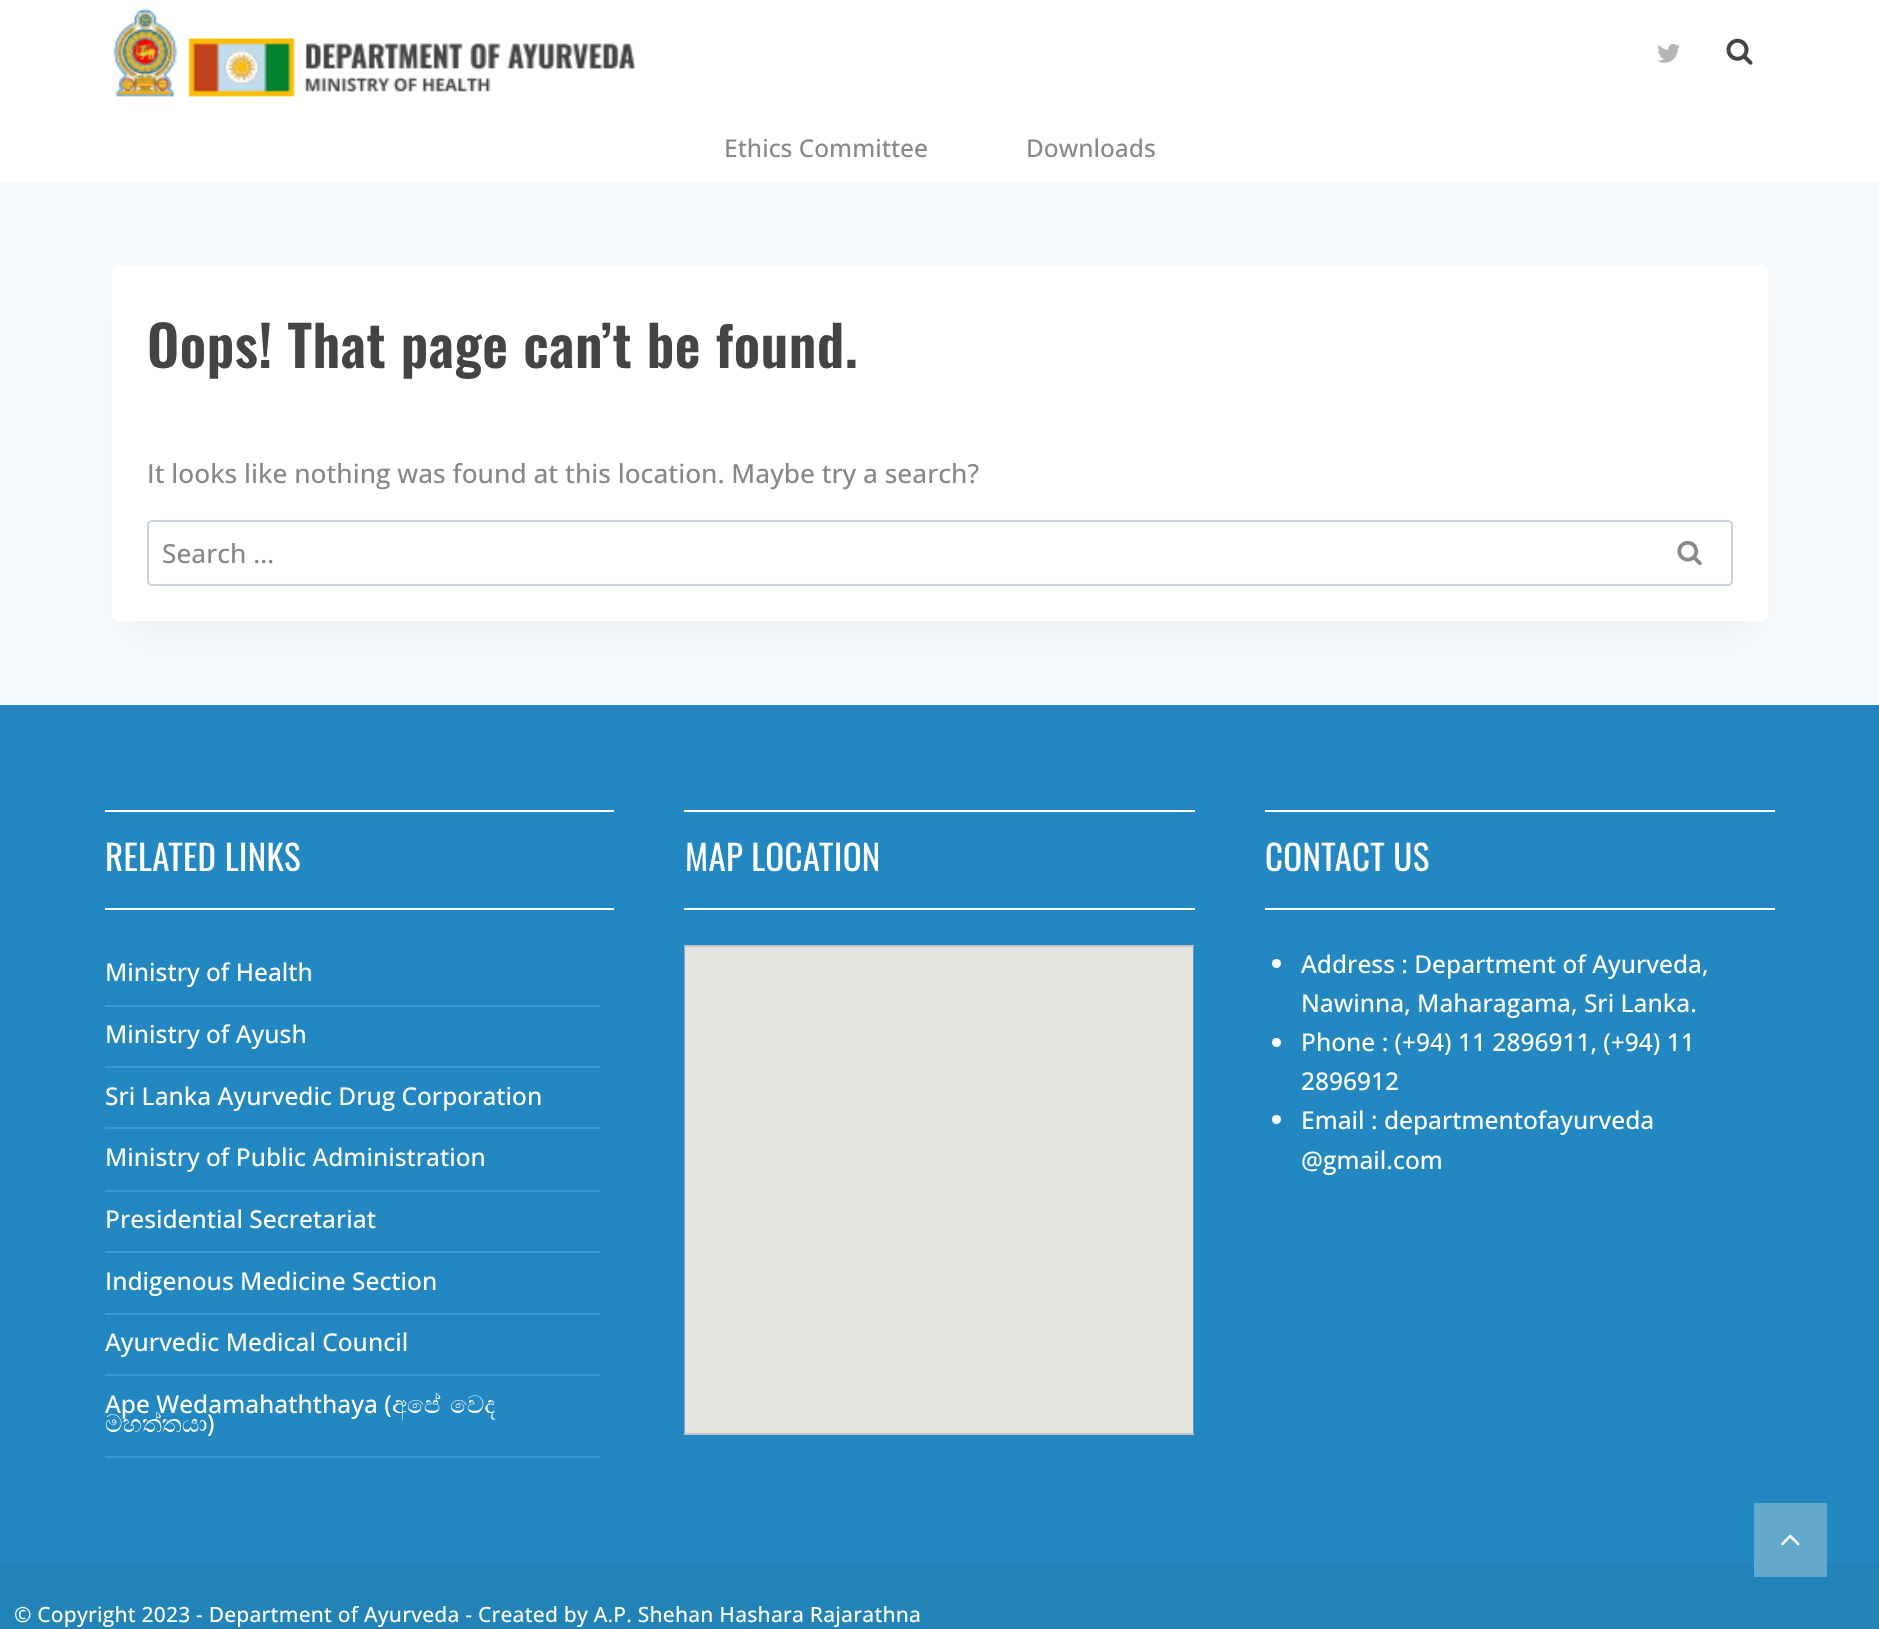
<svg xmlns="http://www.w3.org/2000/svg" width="1879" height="1629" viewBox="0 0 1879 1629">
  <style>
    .t1 { font: 500 24.5px Open Sans; fill: #888; }
    .t2 { font: 600 56px Oswald; letter-spacing: 0.55px; fill: #444; }
    .t3 { font: 500 26.25px Open Sans; fill: #888; }
    .t4 { font: 35px Oswald; letter-spacing: 0.3px; fill: #fff; }
    .t5 { font: 500 24.5px Open Sans; fill: #fff; }
    .t6 { font: 24.5px FreeSerif; fill: #fff; }
    .t7 { font: 500 21px Open Sans; letter-spacing: 0.2px; fill: #fff; }
  </style>
  <rect width="100%" height="100%" fill="#f7fafc"/>
  <rect x="0" y="0" width="1879" height="182" fill="#fff"/>
  <image x="113" y="8" width="522" height="89" href="images/1.png"/>
  <image x="1657" y="44" width="23" height="19" href="images/2.png"/>
  <image x="1726" y="38" width="27" height="27" href="images/3.png"/>
  <text x="724" y="157" class="t1">Ethics Committee</text>
  <text x="1026" y="157" class="t1">Downloads</text>
  <rect x="130" y="310" width="1620" height="320" fill="#0000000d" filter="blur(22px)"/>
  <rect x="112" y="266" width="1656" height="355" rx="7" fill="#fff"/>
  <text x="147" y="368" class="t2">Oops! That page can’t be found.</text>
  <text x="147" y="483" class="t3">It looks like nothing was found at this location. Maybe try a search?</text>
  <rect x="148" y="521" width="1584" height="64" rx="4" fill="none" stroke="#cbd5e0" stroke-width="2"/>
  <text x="162" y="563" class="t3">Search …</text>
  <image x="1677" y="540" width="25" height="25" href="images/4.png"/>
  <rect x="0" y="705" width="1879" height="858" fill="#2388c2"/>
  <rect x="105" y="810" width="509" height="2" fill="#fff"/>
  <text x="105" y="871" class="t4">RELATED LINKS</text>
  <rect x="105" y="908" width="509" height="2" fill="#fff"/>
  <rect x="105" y="1005" width="495" height="2" fill="#379cd6"/>
  <text x="105" y="981" class="t5">Ministry of Health</text>
  <rect x="105" y="1066" width="495" height="2" fill="#379cd6"/>
  <text x="105" y="1043" class="t5">Ministry of Ayush</text>
  <rect x="105" y="1127" width="495" height="2" fill="#379cd6"/>
  <text x="105" y="1105" class="t5">Sri Lanka Ayurvedic Drug Corporation</text>
  <rect x="105" y="1190" width="495" height="2" fill="#379cd6"/>
  <text x="105" y="1166" class="t5">Ministry of Public Administration</text>
  <rect x="105" y="1251" width="495" height="2" fill="#379cd6"/>
  <text x="105" y="1228" class="t5">Presidential Secretariat</text>
  <rect x="105" y="1313" width="495" height="2" fill="#379cd6"/>
  <text x="105" y="1290" class="t5">Indigenous Medicine Section</text>
  <rect x="105" y="1374" width="495" height="2" fill="#379cd6"/>
  <text x="105" y="1351" class="t5">Ayurvedic Medical Council</text>
  <rect x="105" y="1456" width="495" height="2" fill="#379cd6"/>
  <text x="105" y="1413" class="t5">Ape Wedamahaththaya (</text>
  <text x="392" y="1413" class="t6">අපේ</text>
  <text x="450" y="1413" class="t6">වෙද</text>
  <text x="105" y="1432" class="t6">මහත්තයා</text>
  <text x="207" y="1432" class="t5">)</text>
  <rect x="684" y="810" width="511" height="2" fill="#fff"/>
  <text x="685" y="871" class="t4">MAP LOCATION</text>
  <rect x="684" y="908" width="511" height="2" fill="#fff"/>
  <image x="684" y="945" width="510" height="490" href="images/5.png"/>
  <rect x="1265" y="810" width="510" height="2" fill="#fff"/>
  <text x="1265" y="871" class="t4">CONTACT US</text>
  <rect x="1265" y="908" width="510" height="2" fill="#fff"/>
  <circle cx="1276.5" cy="963.5" r="4.5" fill="#fff"/>
  <text x="1301" y="973" class="t5">Address : Department of Ayurveda,</text>
  <text x="1301" y="1012" class="t5">Nawinna, Maharagama, Sri Lanka.</text>
  <circle cx="1276.5" cy="1042.5" r="4.5" fill="#fff"/>
  <text x="1301" y="1051" class="t5">Phone : (+94) 11 2896911, (+94) 11</text>
  <text x="1301" y="1090" class="t5">2896912</text>
  <circle cx="1276.5" cy="1119.5" r="4.5" fill="#fff"/>
  <text x="1301" y="1129" class="t5">Email : departmentofayurveda</text>
  <text x="1301" y="1169" class="t5">@gmail.com</text>
  <rect x="0" y="1563" width="1879" height="66" fill="#2183b8"/>
  <text x="14" y="1622" class="t7">© Copyright 2023 - Department of Ayurveda - Created by A.P. Shehan Hashara Rajarathna</text>
  <rect x="1754" y="1503" width="73" height="74" fill="#63a8cd"/>
  <image x="1781" y="1534" width="19" height="12" href="images/6.png"/>
</svg>
